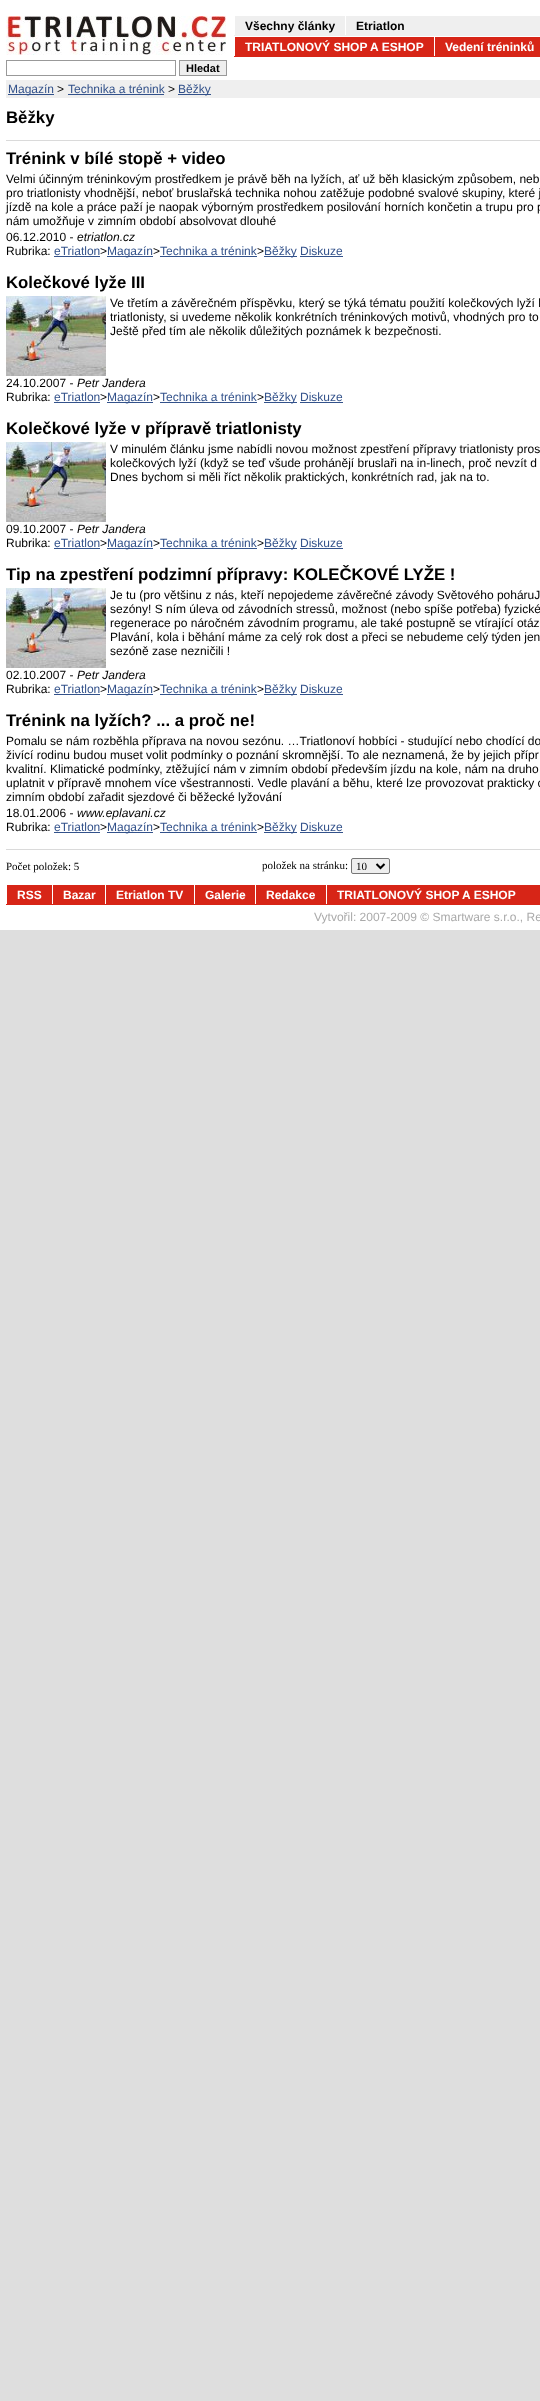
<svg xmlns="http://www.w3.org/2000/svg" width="540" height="2401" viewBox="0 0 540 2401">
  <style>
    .t1 { font: bold 12px Liberation Sans; fill: #000; }
    .t2 { font: bold 12px Liberation Sans; fill: #fff; }
    .t3 { font: bold 11px Liberation Sans; fill: #000; }
    .t4 { font: 12px Liberation Sans; fill: #33528b; }
    .t5 { font: 12px Liberation Sans; fill: #000; }
    .t6 { font: bold 16.8px Liberation Sans; fill: #000; }
    .t7 { font: italic 12px Liberation Sans; fill: #000; }
    .t8 { font: 11px Liberation Serif; fill: #000; }
    .t9 { font: 12px Liberation Sans; fill: #aaa; }
  </style>
  <rect width="100%" height="100%" fill="#dedede"/>
  <rect x="0" y="0" width="540" height="80" fill="#fff"/>
  <image x="6" y="16" width="220" height="39" href="images/1.png"/>
  <rect x="234" y="16" width="306" height="20" fill="#efefef"/>
  <rect x="234" y="16" width="1" height="19" fill="#fff"/>
  <text x="245" y="30" class="t1">Všechny články</text>
  <rect x="345" y="16" width="1" height="19" fill="#fff"/>
  <text x="356" y="30" class="t1">Etriatlon</text>
  <rect x="234" y="37" width="306" height="20" fill="#d72517"/>
  <rect x="234" y="37" width="1" height="19" fill="#fff"/>
  <text x="245" y="51" class="t2">TRIATLONOVÝ SHOP A ESHOP</text>
  <rect x="434" y="37" width="1" height="19" fill="#fff"/>
  <text x="445" y="51" class="t2">Vedení tréninků</text>
  <rect x="6.5" y="60.5" width="169" height="15" fill="none" stroke="#999"/>
  <rect x="179.5" y="60.5" width="47" height="15" fill="#eee" stroke="#999"/>
  <text x="186" y="72" class="t3">Hledat</text>
  <rect x="6" y="80" width="534" height="18" fill="#efefef"/>
  <rect x="6" y="98" width="534" height="10" fill="#fff"/>
  <rect x="0" y="77" width="6" height="31" fill="#fff"/>
  <rect x="8" y="94" width="46" height="1" fill="#33528b"/>
  <text x="8" y="93" class="t4">Magazín</text>
  <text x="57" y="93" class="t5">&gt;</text>
  <text x="68" y="93" class="t4">Technika a trénink</text>
  <rect x="68" y="94" width="96" height="1" fill="#33528b"/>
  <text x="168" y="93" class="t5">&gt;</text>
  <rect x="178" y="94" width="33" height="1" fill="#33528b"/>
  <text x="178" y="93" class="t4">Běžky</text>
  <rect x="0" y="108" width="540" height="777" fill="#fff"/>
  <rect x="6" y="140" width="534" height="1" fill="#dadada"/>
  <text x="6" y="123" class="t6">Běžky</text>
  <text x="6" y="164" class="t6">Trénink v bílé stopě + video</text>
  <text x="6" y="183" class="t5">Velmi účinným tréninkovým prostředkem je právě běh na lyžích, ať už běh klasickým způsobem, neb</text>
  <text x="6" y="197" class="t5">pro triatlonisty vhodnější, neboť bruslařská technika nohou zatěžuje podobné svalové skupiny, které j</text>
  <text x="6" y="211" class="t5">jízdě na kole a práce paží je naopak výborným prostředkem posilování horních končetin a trupu pro p</text>
  <text x="6" y="225" class="t5">nám umožňuje v zimním období absolvovat dlouhé</text>
  <text x="6" y="241" class="t5">06.12.2010 -</text>
  <text x="77" y="241" class="t7">etriatlon.cz</text>
  <text x="6" y="255" class="t5">Rubrika:</text>
  <text x="54" y="255" class="t4">eTriatlon</text>
  <rect x="54" y="256" width="46" height="1" fill="#33528b"/>
  <text x="100" y="255" class="t5">&gt;</text>
  <rect x="107" y="256" width="46" height="1" fill="#33528b"/>
  <text x="107" y="255" class="t4">Magazín</text>
  <text x="153" y="255" class="t5">&gt;</text>
  <text x="160" y="255" class="t4">Technika a trénink</text>
  <rect x="160" y="256" width="97" height="1" fill="#33528b"/>
  <text x="257" y="255" class="t5">&gt;</text>
  <rect x="264" y="256" width="33" height="1" fill="#33528b"/>
  <text x="264" y="255" class="t4">Běžky Diskuze</text>
  <rect x="300" y="256" width="43" height="1" fill="#33528b"/>
  <text x="6" y="288" class="t6">Kolečkové lyže III</text>
  <image x="6" y="296" width="100" height="80" href="images/2.png"/>
  <text x="110" y="307" class="t5">Ve třetím a závěrečném příspěvku, který se týká tématu použití kolečkových lyží k</text>
  <text x="110" y="321" class="t5">triatlonisty, si uvedeme několik konkrétních tréninkových motivů, vhodných pro to</text>
  <text x="110" y="335" class="t5">Ještě před tím ale několik důležitých poznámek k bezpečnosti.</text>
  <text x="6" y="387" class="t5">24.10.2007 -</text>
  <text x="77" y="387" class="t7">Petr Jandera</text>
  <text x="6" y="401" class="t5">Rubrika:</text>
  <text x="54" y="401" class="t4">eTriatlon</text>
  <rect x="54" y="402" width="46" height="1" fill="#33528b"/>
  <text x="100" y="401" class="t5">&gt;</text>
  <rect x="107" y="402" width="46" height="1" fill="#33528b"/>
  <text x="107" y="401" class="t4">Magazín</text>
  <text x="153" y="401" class="t5">&gt;</text>
  <text x="160" y="401" class="t4">Technika a trénink</text>
  <rect x="160" y="402" width="97" height="1" fill="#33528b"/>
  <text x="257" y="401" class="t5">&gt;</text>
  <rect x="264" y="402" width="33" height="1" fill="#33528b"/>
  <text x="264" y="401" class="t4">Běžky Diskuze</text>
  <rect x="300" y="402" width="43" height="1" fill="#33528b"/>
  <text x="6" y="434" class="t6">Kolečkové lyže v přípravě triatlonisty</text>
  <image x="6" y="442" width="100" height="80" href="images/2.png"/>
  <text x="110" y="453" class="t5">V minulém článku jsme nabídli novou možnost zpestření přípravy triatlonisty pros</text>
  <text x="110" y="467" class="t5">kolečkových lyží (když se teď všude prohánějí bruslaři na in-linech, proč nevzít d</text>
  <text x="110" y="481" class="t5">Dnes bychom si měli říct několik praktických, konkrétních rad, jak na to.</text>
  <text x="6" y="533" class="t5">09.10.2007 -</text>
  <text x="77" y="533" class="t7">Petr Jandera</text>
  <text x="6" y="547" class="t5">Rubrika:</text>
  <text x="54" y="547" class="t4">eTriatlon</text>
  <rect x="54" y="548" width="46" height="1" fill="#33528b"/>
  <text x="100" y="547" class="t5">&gt;</text>
  <rect x="107" y="548" width="46" height="1" fill="#33528b"/>
  <text x="107" y="547" class="t4">Magazín</text>
  <text x="153" y="547" class="t5">&gt;</text>
  <text x="160" y="547" class="t4">Technika a trénink</text>
  <rect x="160" y="548" width="97" height="1" fill="#33528b"/>
  <text x="257" y="547" class="t5">&gt;</text>
  <rect x="264" y="548" width="33" height="1" fill="#33528b"/>
  <text x="264" y="547" class="t4">Běžky Diskuze</text>
  <rect x="300" y="548" width="43" height="1" fill="#33528b"/>
  <text x="6" y="580" class="t6">Tip na zpestření podzimní přípravy: KOLEČKOVÉ LYŽE !</text>
  <image x="6" y="588" width="100" height="80" href="images/2.png"/>
  <text x="110" y="599" class="t5">Je tu (pro většinu z nás, kteří nepojedeme závěrečné závody Světového poháruJ</text>
  <text x="110" y="613" class="t5">sezóny! S ním úleva od závodních stressů, možnost (nebo spíše potřeba) fyzické</text>
  <text x="110" y="627" class="t5">regenerace po náročném závodním programu, ale také postupně se vtírající otáz</text>
  <text x="110" y="641" class="t5">Plavání, kola i běhání máme za celý rok dost a přeci se nebudeme celý týden jen</text>
  <text x="110" y="655" class="t5">sezóně zase nezničili !</text>
  <text x="6" y="679" class="t5">02.10.2007 -</text>
  <text x="77" y="679" class="t7">Petr Jandera</text>
  <text x="6" y="693" class="t5">Rubrika:</text>
  <text x="54" y="693" class="t4">eTriatlon</text>
  <rect x="54" y="694" width="46" height="1" fill="#33528b"/>
  <text x="100" y="693" class="t5">&gt;</text>
  <rect x="107" y="694" width="46" height="1" fill="#33528b"/>
  <text x="107" y="693" class="t4">Magazín</text>
  <text x="153" y="693" class="t5">&gt;</text>
  <text x="160" y="693" class="t4">Technika a trénink</text>
  <rect x="160" y="694" width="97" height="1" fill="#33528b"/>
  <text x="257" y="693" class="t5">&gt;</text>
  <rect x="264" y="694" width="33" height="1" fill="#33528b"/>
  <text x="264" y="693" class="t4">Běžky Diskuze</text>
  <rect x="300" y="694" width="43" height="1" fill="#33528b"/>
  <text x="6" y="726" class="t6">Trénink na lyžích? ... a proč ne!</text>
  <text x="6" y="745" class="t5">Pomalu se nám rozběhla příprava na novou sezónu. …Triatlonoví hobbíci - studující nebo chodící do</text>
  <text x="6" y="759" class="t5">živící rodinu budou muset volit podmínky o poznání skromnější. To ale neznamená, že by jejich přípr</text>
  <text x="6" y="773" class="t5">kvalitní. Klimatické podmínky, ztěžující nám v zimním období především jízdu na kole, nám na druho</text>
  <text x="6" y="787" class="t5">uplatnit v přípravě mnohem více všestrannosti. Vedle plavání a běhu, které lze provozovat prakticky c</text>
  <text x="6" y="801" class="t5">zimním období zařadit sjezdové či běžecké lyžování</text>
  <text x="6" y="817" class="t5">18.01.2006 -</text>
  <text x="77" y="817" class="t7">www.eplavani.cz</text>
  <text x="6" y="831" class="t5">Rubrika:</text>
  <text x="54" y="831" class="t4">eTriatlon</text>
  <rect x="54" y="832" width="46" height="1" fill="#33528b"/>
  <text x="100" y="831" class="t5">&gt;</text>
  <rect x="107" y="832" width="46" height="1" fill="#33528b"/>
  <text x="107" y="831" class="t4">Magazín</text>
  <text x="153" y="831" class="t5">&gt;</text>
  <text x="160" y="831" class="t4">Technika a trénink</text>
  <rect x="160" y="832" width="97" height="1" fill="#33528b"/>
  <text x="257" y="831" class="t5">&gt;</text>
  <rect x="264" y="832" width="33" height="1" fill="#33528b"/>
  <text x="264" y="831" class="t4">Běžky Diskuze</text>
  <rect x="300" y="832" width="43" height="1" fill="#33528b"/>
  <rect x="6" y="849" width="534" height="1" fill="#dadada"/>
  <text x="6" y="870" class="t8">Počet položek: 5</text>
  <text x="262" y="869" class="t8">položek na stránku:</text>
  <rect x="351.5" y="858.5" width="38" height="15" rx="1.5" fill="#eee" stroke="#767676"/>
  <path d="M376.5 864L380.5 868L384.5 864" fill="none" stroke="#000" stroke-width="2"/>
  <text x="356" y="870" class="t8">10</text>
  <rect x="6" y="885" width="534" height="20" fill="#d72517"/>
  <rect x="0" y="885" width="6" height="20" fill="#fff"/>
  <rect x="6" y="885" width="1" height="19" fill="#fff"/>
  <text x="17" y="899" class="t2">RSS</text>
  <rect x="52" y="885" width="1" height="19" fill="#fff"/>
  <text x="63" y="899" class="t2">Bazar</text>
  <rect x="105" y="885" width="1" height="19" fill="#fff"/>
  <text x="116" y="899" class="t2">Etriatlon TV</text>
  <rect x="194" y="885" width="1" height="19" fill="#fff"/>
  <text x="205" y="899" class="t2">Galerie</text>
  <rect x="255" y="885" width="1" height="19" fill="#fff"/>
  <text x="266" y="899" class="t2">Redakce</text>
  <rect x="326" y="885" width="1" height="19" fill="#fff"/>
  <text x="337" y="899" class="t2">TRIATLONOVÝ SHOP A ESHOP</text>
  <rect x="0" y="905" width="540" height="25" fill="#fff"/>
  <text x="314" y="921" class="t9">Vytvořil: 2007-2009 © Smartware s.r.o., Re</text>
</svg>
